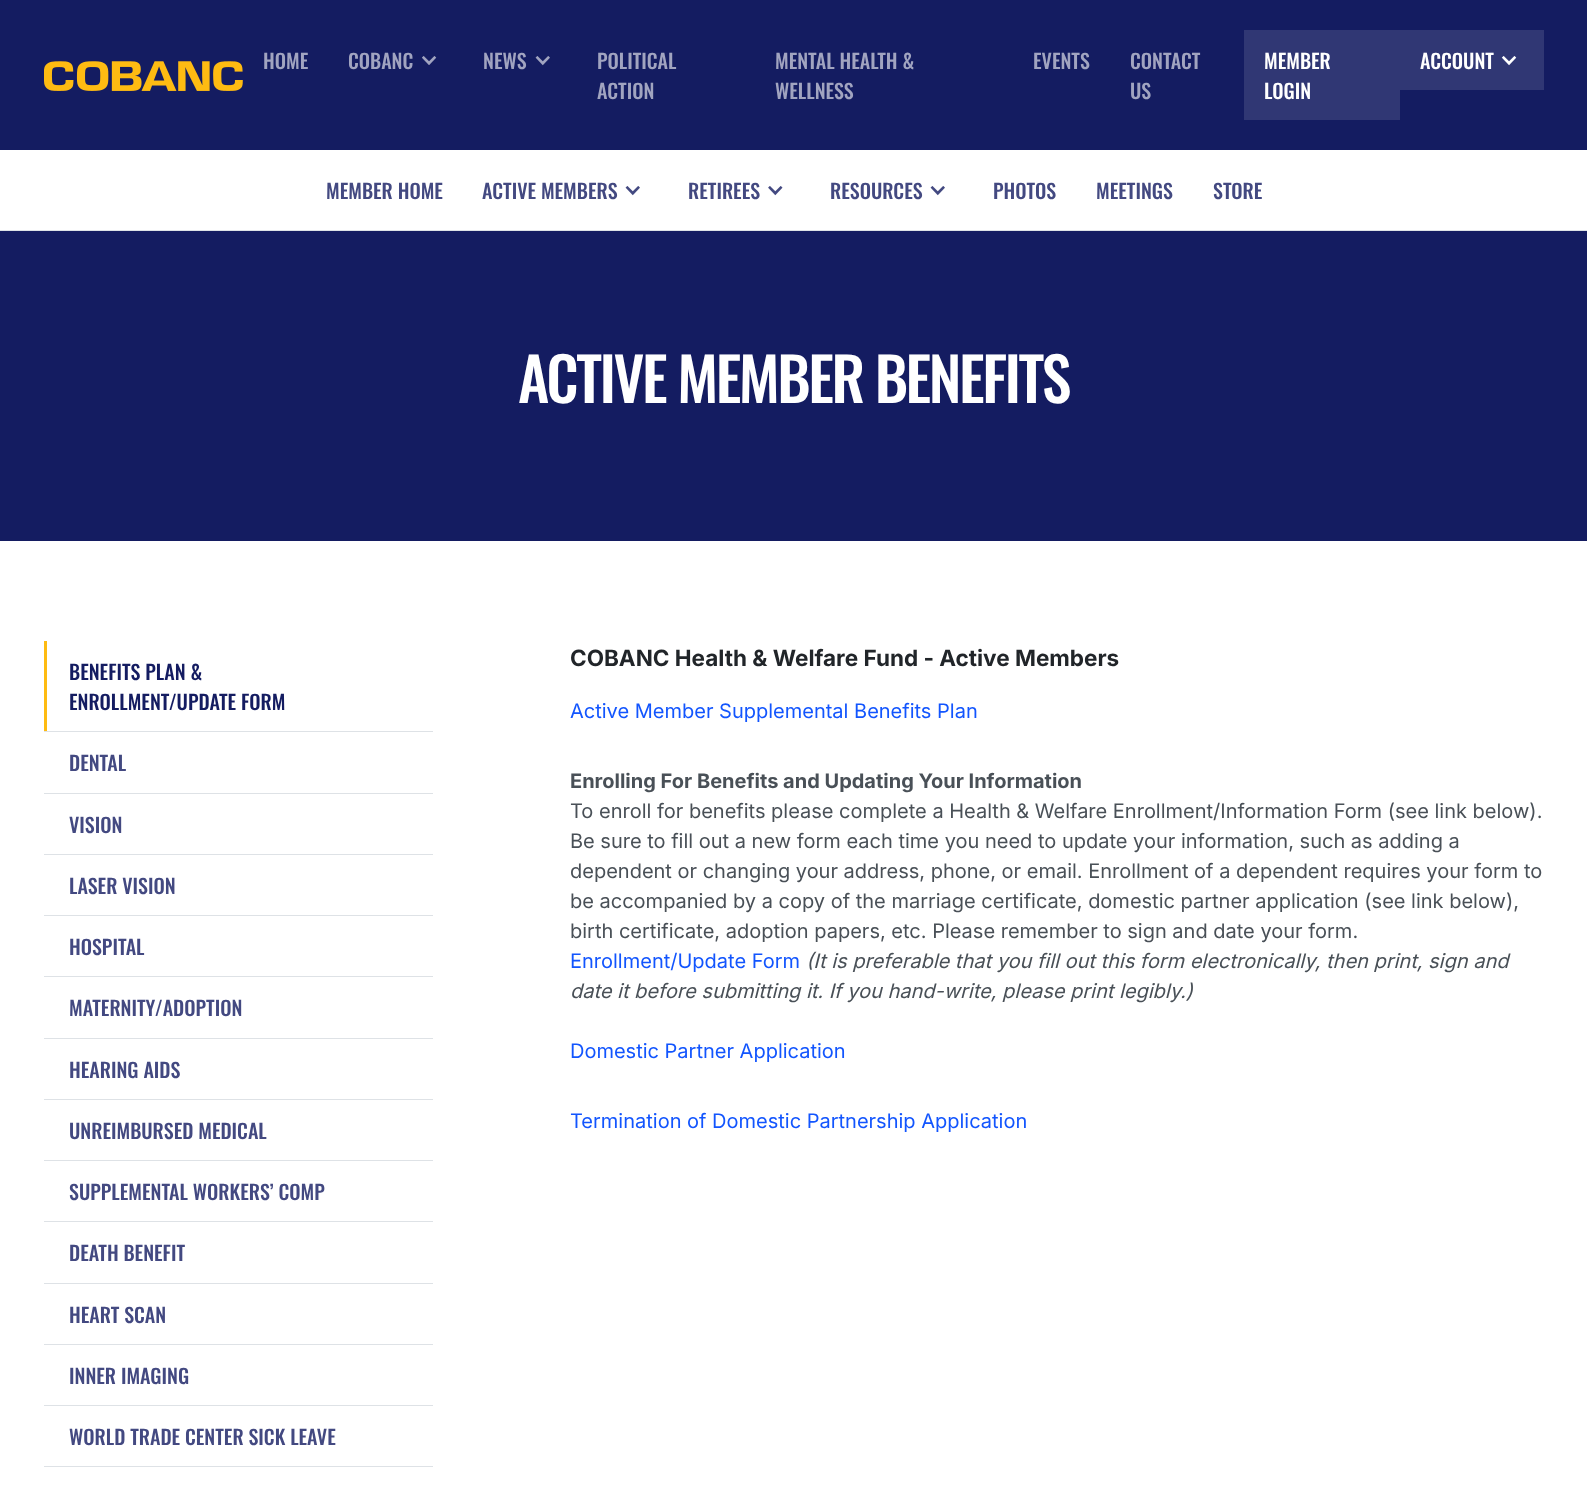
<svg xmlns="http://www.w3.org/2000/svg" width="1587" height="1506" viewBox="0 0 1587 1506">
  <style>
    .t1 { font: 500 20px Oswald; fill: #a1a4c0; }
    .t2 { font: 500 20px Oswald; fill: #fff; }
    .t3 { font: 500 20px Oswald; fill: #434981; }
    .t4 { font: 500 60px Oswald; letter-spacing: -2.5px; fill: #fff; }
    .t5 { font: 500 20px Oswald; fill: #141c61; }
    .t6 { font: bold 22.5px Inter; fill: #212529; }
    .t7 { font: 20px Inter; fill: #1255fe; }
    .t8 { font: bold 20px Inter; fill: #495057; }
    .t9 { font: 20px Inter; fill: #495057; }
    .t10 { font: italic 20px Inter; fill: #495057; }
  </style>
  <rect width="100%" height="100%" fill="#fff"/>
  <rect x="0" y="0" width="1587" height="150" fill="#141c61"/>
  <image x="44" y="61" width="199" height="30" href="images/1.png"/>
  <text x="263" y="69" class="t1">HOME</text>
  <text x="348" y="69" class="t1">COBANC</text>
  <image x="422" y="56" width="15" height="9" href="images/2.png"/>
  <text x="483" y="69" class="t1">NEWS</text>
  <image x="535" y="56" width="15" height="10" href="images/3.png"/>
  <text x="597" y="69" class="t1">POLITICAL</text>
  <text x="597" y="99" class="t1">ACTION</text>
  <text x="775" y="69" class="t1">MENTAL HEALTH &amp;</text>
  <text x="775" y="99" class="t1">WELLNESS</text>
  <text x="1033" y="69" class="t1">EVENTS</text>
  <text x="1130" y="69" class="t1">CONTACT</text>
  <text x="1130" y="99" class="t1">US</text>
  <rect x="1244" y="30" width="156" height="90" fill="#303774"/>
  <text x="1264" y="69" class="t2">MEMBER</text>
  <text x="1264" y="99" class="t2">LOGIN</text>
  <rect x="1400" y="30" width="144" height="60" fill="#303774"/>
  <text x="1420" y="69" class="t2">ACCOUNT</text>
  <image x="1501" y="56" width="16" height="10" href="images/4.png"/>
  <rect x="0" y="230" width="1587" height="1" fill="#dee2e6"/>
  <text x="326" y="199" class="t3">MEMBER HOME</text>
  <text x="482" y="199" class="t3">ACTIVE MEMBERS</text>
  <image x="625" y="186" width="15" height="10" href="images/5.png"/>
  <text x="688" y="199" class="t3">RETIREES</text>
  <image x="768" y="186" width="15" height="10" href="images/6.png"/>
  <text x="830" y="199" class="t3">RESOURCES</text>
  <image x="930" y="186" width="15" height="10" href="images/5.png"/>
  <text x="993" y="199" class="t3">PHOTOS</text>
  <text x="1096" y="199" class="t3">MEETINGS</text>
  <text x="1213" y="199" class="t3">STORE</text>
  <rect x="0" y="231" width="1587" height="310" fill="#141c61"/>
  <text x="518" y="403" class="t4">ACTIVE MEMBER BENEFITS</text>
  <rect x="44" y="731" width="389" height="1" fill="#dee2e6"/>
  <rect x="44" y="641" width="3" height="90" fill="#febb12"/>
  <text x="69" y="680" class="t5">BENEFITS PLAN &amp;</text>
  <text x="69" y="710" class="t5">ENROLLMENT/UPDATE FORM</text>
  <rect x="44" y="793" width="389" height="1" fill="#dee2e6"/>
  <text x="69" y="771" class="t3">DENTAL</text>
  <rect x="44" y="854" width="389" height="1" fill="#dee2e6"/>
  <text x="69" y="833" class="t3">VISION</text>
  <rect x="44" y="915" width="389" height="1" fill="#dee2e6"/>
  <text x="69" y="894" class="t3">LASER VISION</text>
  <rect x="44" y="976" width="389" height="1" fill="#dee2e6"/>
  <text x="69" y="955" class="t3">HOSPITAL</text>
  <rect x="44" y="1038" width="389" height="1" fill="#dee2e6"/>
  <text x="69" y="1016" class="t3">MATERNITY/ADOPTION</text>
  <rect x="44" y="1099" width="389" height="1" fill="#dee2e6"/>
  <text x="69" y="1078" class="t3">HEARING AIDS</text>
  <rect x="44" y="1160" width="389" height="1" fill="#dee2e6"/>
  <text x="69" y="1139" class="t3">UNREIMBURSED MEDICAL</text>
  <rect x="44" y="1221" width="389" height="1" fill="#dee2e6"/>
  <text x="69" y="1200" class="t3">SUPPLEMENTAL WORKERS’ COMP</text>
  <rect x="44" y="1283" width="389" height="1" fill="#dee2e6"/>
  <text x="69" y="1261" class="t3">DEATH BENEFIT</text>
  <rect x="44" y="1344" width="389" height="1" fill="#dee2e6"/>
  <text x="69" y="1323" class="t3">HEART SCAN</text>
  <rect x="44" y="1405" width="389" height="1" fill="#dee2e6"/>
  <text x="69" y="1384" class="t3">INNER IMAGING</text>
  <rect x="44" y="1466" width="389" height="1" fill="#dee2e6"/>
  <text x="69" y="1445" class="t3">WORLD TRADE CENTER SICK LEAVE</text>
  <text x="570" y="666" class="t6">COBANC Health &amp; Welfare Fund - Active Members</text>
  <text x="570" y="718" class="t7">Active Member Supplemental Benefits Plan</text>
  <text x="570" y="788" class="t8">Enrolling For Benefits and Updating Your Information</text>
  <text x="570" y="818" class="t9">To enroll for benefits please complete a Health &amp; Welfare Enrollment/Information Form (see link below).</text>
  <text x="570" y="848" class="t9">Be sure to fill out a new form each time you need to update your information, such as adding a</text>
  <text x="570" y="878" class="t9">dependent or changing your address, phone, or email. Enrollment of a dependent requires your form to</text>
  <text x="570" y="908" class="t9">be accompanied by a copy of the marriage certificate, domestic partner application (see link below),</text>
  <text x="570" y="938" class="t9">birth certificate, adoption papers, etc. Please remember to sign and date your form.</text>
  <text x="570" y="968" class="t7">Enrollment/Update Form</text>
  <text x="806" y="968" class="t10">(It is preferable that you fill out this form electronically, then print, sign and</text>
  <text x="570" y="998" class="t10">date it before submitting it. If you hand-write, please print legibly.)</text>
  <text x="570" y="1058" class="t7">Domestic Partner Application</text>
  <text x="570" y="1128" class="t7">Termination of Domestic Partnership Application</text>
</svg>
